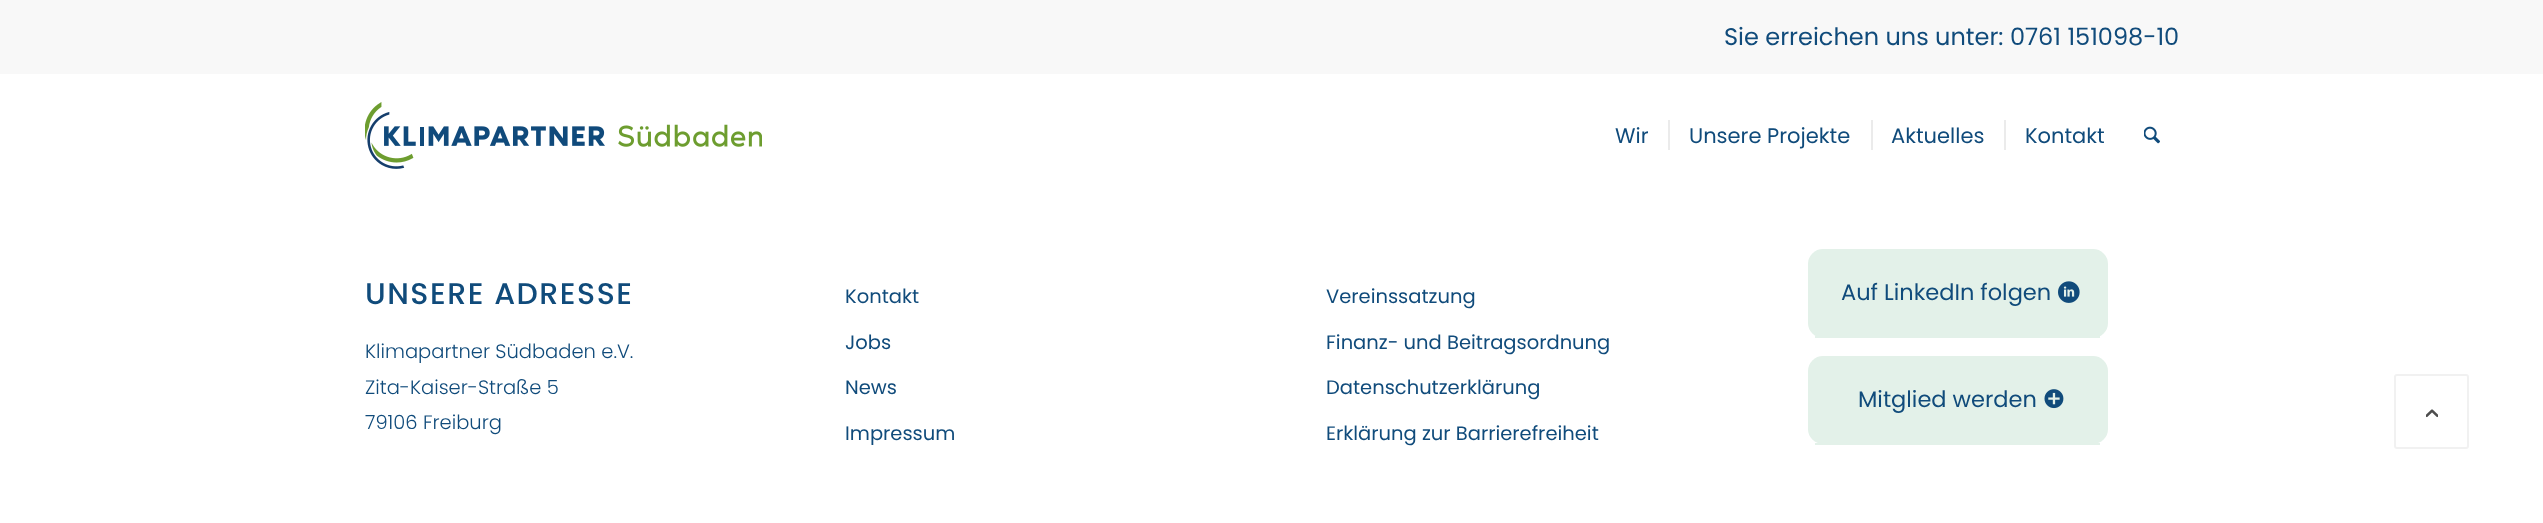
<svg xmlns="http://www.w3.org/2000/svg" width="2543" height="523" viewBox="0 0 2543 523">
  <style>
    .t1 { font: 24px Poppins; fill: #104b7b; }
    .t2 { font: 21px Poppins; fill: #104b7b; }
    .t3 { font: 500 30px Poppins; letter-spacing: 1.5px; fill: #104b7b; }
    .t4 { font: 300 19.5px Poppins; fill: #104b7b; }
    .t5 { font: 19.5px Poppins; fill: #104b7b; }
    .t6 { font: 22.5px Poppins; fill: #104b7b; }
  </style>
  <rect width="100%" height="100%" fill="#fff"/>
  <rect x="0" y="0" width="2543" height="74" fill="#f8f8f8"/>
  <text x="1724" y="45" class="t1">Sie erreichen uns unter: 0761 151098-10</text>
  <image x="365" y="102" width="397" height="67" href="images/1.png"/>
  <text x="1615" y="143" class="t2">Wir</text>
  <text x="1689" y="143" class="t2">Unsere Projekte</text>
  <rect x="1668" y="120" width="2" height="30" fill="#ebebeb"/>
  <text x="1891" y="143" class="t2">Aktuelles</text>
  <rect x="1871" y="120" width="2" height="30" fill="#ebebeb"/>
  <text x="2025" y="143" class="t2">Kontakt</text>
  <rect x="2004" y="120" width="2" height="30" fill="#ebebeb"/>
  <image x="2144" y="126" width="16" height="18" href="images/2.png"/>
  <text x="365" y="304" class="t3">UNSERE ADRESSE</text>
  <text x="365" y="358" class="t4">Klimapartner Südbaden e.V.</text>
  <text x="365" y="394" class="t4">Zita-Kaiser-Straße 5</text>
  <text x="365" y="429" class="t4">79106 Freiburg</text>
  <text x="845" y="303" class="t5">Kontakt</text>
  <text x="845" y="349" class="t5">Jobs</text>
  <text x="845" y="394" class="t5">News</text>
  <text x="845" y="440" class="t5">Impressum</text>
  <text x="1326" y="303" class="t5">Vereinssatzung</text>
  <text x="1326" y="349" class="t5">Finanz- und Beitragsordnung</text>
  <text x="1326" y="394" class="t5">Datenschutzerklärung</text>
  <text x="1326" y="440" class="t5">Erklärung zur Barrierefreiheit</text>
  <rect x="1808" y="249" width="300" height="89" rx="15" fill="#e3f1e9"/>
  <rect x="1815" y="336" width="285" height="2" fill="#e3f1e9"/>
  <text x="1841" y="300" class="t6">Auf LinkedIn folgen</text>
  <image x="2058" y="281" width="22" height="22" href="images/3.png"/>
  <rect x="1808" y="356" width="300" height="88" rx="15" fill="#e3f1e9"/>
  <rect x="1815" y="443" width="285" height="2" fill="#e3f1e9"/>
  <text x="1858" y="407" class="t6">Mitglied werden</text>
  <image x="2044" y="389" width="20" height="20" href="images/4.png"/>
  <rect x="2395" y="375" width="73" height="73" rx="2" fill="none" stroke="#f1f1f1" stroke-width="2"/>
  <image x="2426" y="409" width="12" height="9" href="images/5.png"/>
</svg>
